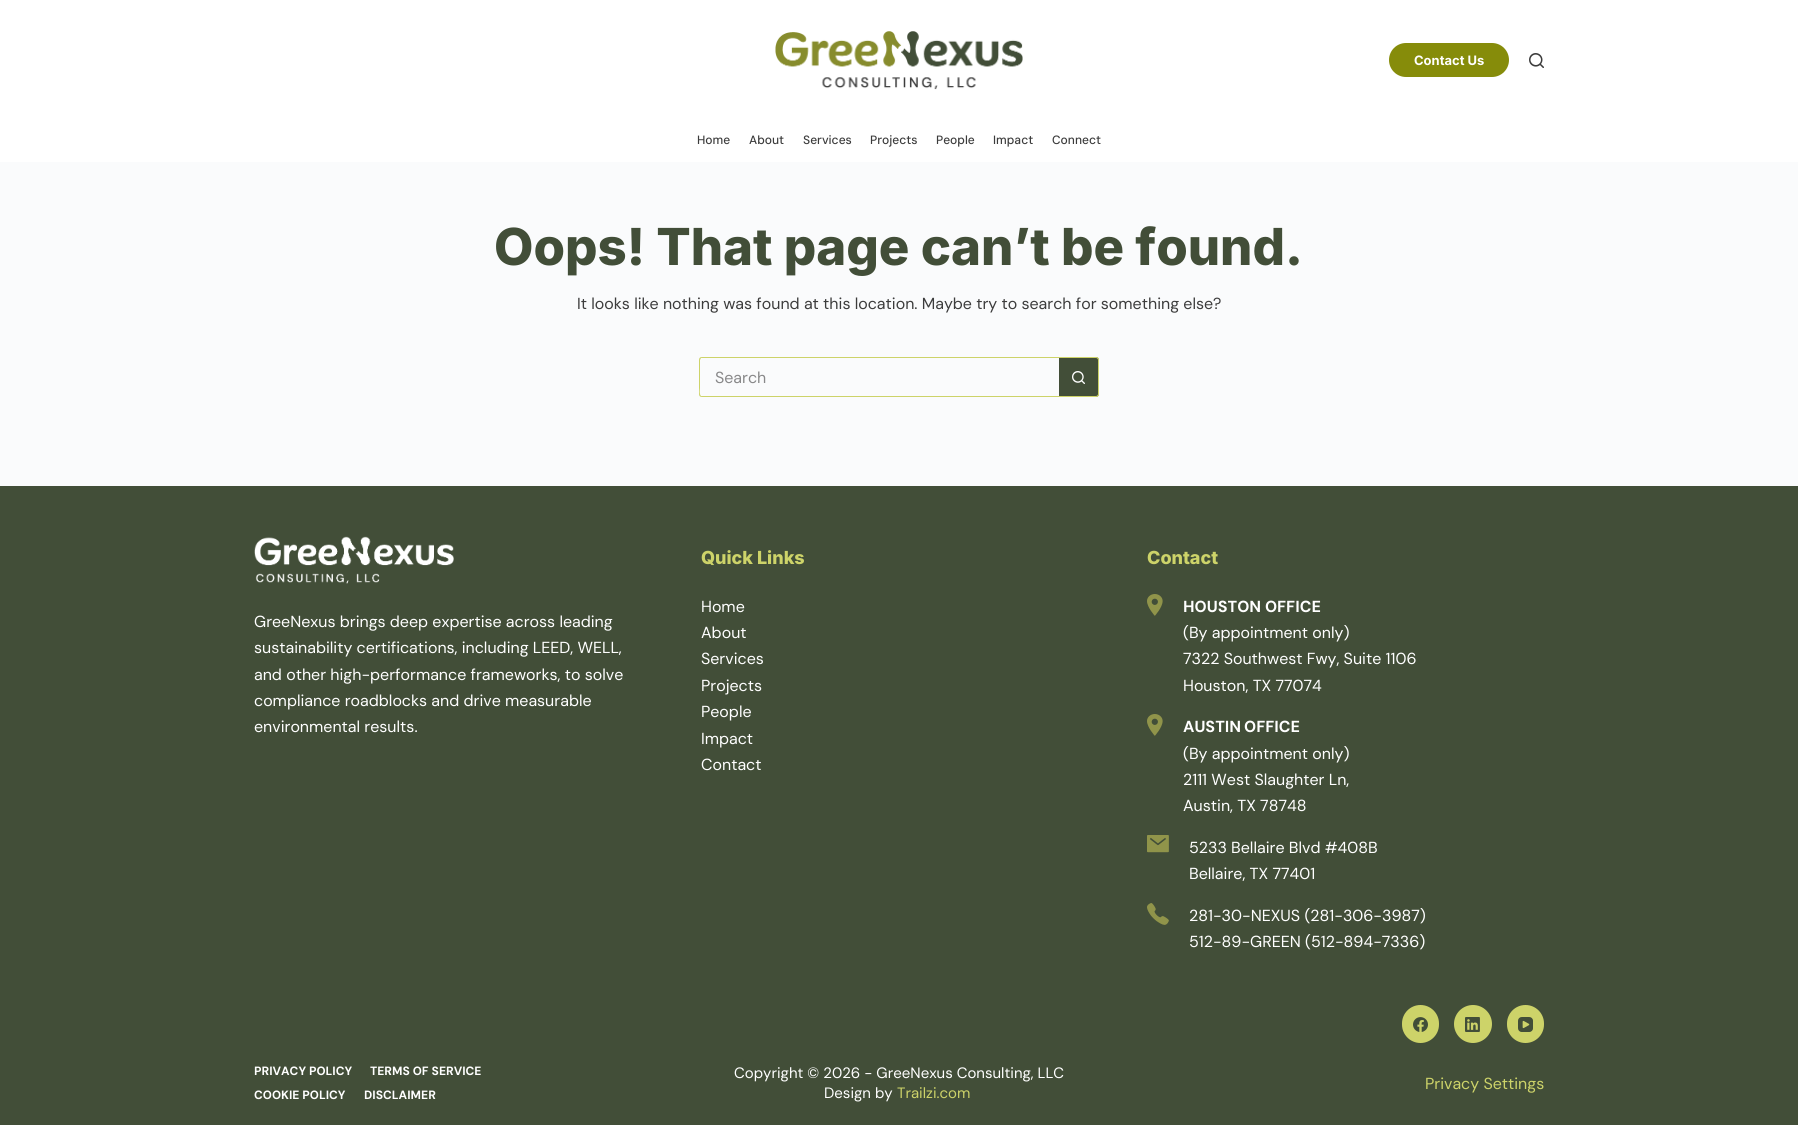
import math
import cairocffi as cairo

surface = cairo.ImageSurface(cairo.FORMAT_RGB24, 1798, 1125)
ctx = cairo.Context(surface)
options = cairo.FontOptions()
options.set_hint_metrics(cairo.HINT_METRICS_OFF)
options.set_hint_style(cairo.HINT_STYLE_NONE)
ctx.set_font_options(options)
ctx.set_miter_limit(4)


def rgb(r, g, b):
    ctx.set_source_rgb(r / 255, g / 255, b / 255)


def face(family, size, italic, bold):
    ctx.select_font_face(family, cairo.FONT_SLANT_ITALIC if italic else cairo.FONT_SLANT_NORMAL, cairo.FONT_WEIGHT_BOLD if bold else cairo.FONT_WEIGHT_NORMAL)
    ctx.set_font_size(size)


def label(x, y, s):
    ctx.move_to(x, y)
    ctx.show_text(s)


def tracked(x, y, s, letter, word):
    ctx.move_to(x, y)
    for ch in s:
        ctx.show_text(ch)
        ctx.rel_move_to(letter + word * (ch == ' '), 0)


def rect(x, y, w, h):
    ctx.rectangle(x, y, w, h)
    ctx.fill()


def rrect(x, y, w, h, r):
    ctx.new_sub_path()
    for i, (u, v) in enumerate([(x + w - r, y + h - r), (x + r, y + h - r), (x + r, y + r), (x + w - r, y + r)]):
        ctx.arc(u, v, r, i * math.pi / 2, (i + 1) * math.pi / 2)
    ctx.close_path()


def image(path, x, y, w, h):
    ctx.save()
    ctx.set_source_surface(cairo.ImageSurface.create_from_png(path), x, y)
    ctx.rectangle(x, y, w, h)
    ctx.fill()
    ctx.restore()


rgb(250, 251, 252)
ctx.paint()
rgb(255, 255, 255)
rect(0, 0, 1798, 162)
image('image0.png', 775, 31, 248, 59)
rgb(134, 140, 10)
rrect(1389, 43, 120, 34, 17)
ctx.fill()
face('Inter', 13, 0, 1)
rgb(255, 255, 255)
label(1414, 65, 'Contact Us')
image('image1.png', 1529, 53, 15, 15)
face('DM Sans Medium', 12, 0, 0)
rgb(60, 60, 60)
label(697, 144, 'Home')
label(749, 144, 'About')
label(803, 144, 'Services')
label(870, 144, 'Projects')
label(936, 144, 'People')
label(993, 144, 'Impact')
label(1052, 144, 'Connect')
face('Inter ExtraBold', 51, 0, 0)
rgb(66, 78, 56)
label(494, 265, 'Oops! That page can’t be found.')
face('DM Sans', 16, 0, 0)
rgb(60, 60, 60)
label(577, 309, 'It looks like nothing was found at this location. Maybe try to search for something else?')
rgb(205, 211, 105)
ctx.set_fill_rule(cairo.FILL_RULE_EVEN_ODD)
ctx.new_path()
ctx.move_to(702, 357)
ctx.line_to(1059, 357)
ctx.line_to(1059, 397)
ctx.line_to(702, 397)
ctx.curve_to(700, 397, 699, 396, 699, 394)
ctx.line_to(699, 360)
ctx.curve_to(699, 358, 700, 357, 702, 357)
ctx.close_path()
ctx.move_to(702, 358)
ctx.line_to(1059, 358)
ctx.line_to(1059, 396)
ctx.line_to(701, 396)
ctx.curve_to(699, 394, 700, 389, 700, 388)
ctx.line_to(700, 360)
ctx.line_to(701, 358)
ctx.close_path()
ctx.fill()
rgb(136, 136, 137)
label(715, 383, 'Search')
rgb(66, 78, 56)
ctx.new_path()
ctx.move_to(1059, 357)
ctx.line_to(1096, 357)
ctx.curve_to(1097.5, 357, 1099, 358.5, 1099, 360)
ctx.line_to(1099, 394)
ctx.curve_to(1099, 395.5, 1097.5, 397, 1096, 397)
ctx.line_to(1059, 397)
ctx.close_path()
ctx.fill()
rgb(205, 211, 105)
ctx.new_path()
ctx.move_to(1059, 357)
ctx.line_to(1096, 357)
ctx.curve_to(1098, 357, 1099, 358, 1099, 360)
ctx.line_to(1099, 394)
ctx.curve_to(1099, 396, 1098, 397, 1096, 397)
ctx.line_to(1059, 397)
ctx.close_path()
ctx.move_to(1059, 358)
ctx.line_to(1096, 358)
ctx.curve_to(1097, 358, 1098, 359, 1098, 360)
ctx.line_to(1098, 394)
ctx.curve_to(1098, 395, 1097, 396, 1096, 396)
ctx.line_to(1059, 396)
ctx.close_path()
ctx.fill()
image('image2.png', 1072, 371, 13, 13)
rgb(66, 78, 56)
rect(0, 486, 1798, 639)
image('image3.png', 254, 536, 200, 48)
rgb(255, 255, 255)
label(254, 627, 'GreeNexus brings deep expertise across leading')
label(254, 653, 'sustainability certifications, including LEED, WELL,')
label(254, 680, 'and other high-performance frameworks, to solve')
label(254, 706, 'compliance roadblocks and drive measurable')
label(254, 732, 'environmental results.')
face('Inter ExtraBold', 18, 0, 0)
rgb(205, 211, 105)
label(701, 564, 'Quick Links')
face('DM Sans', 16, 0, 0)
rgb(255, 255, 255)
label(701, 612, 'Home')
label(701, 638, 'About')
label(701, 664, 'Services')
label(701, 691, 'Projects')
label(701, 717, 'People')
label(701, 744, 'Impact')
label(701, 770, 'Contact')
face('Inter ExtraBold', 18, 0, 0)
rgb(205, 211, 105)
label(1147, 564, 'Contact')
image('image4.png', 1147, 594, 16, 22)
face('DM Sans', 16, 0, 1)
rgb(255, 255, 255)
label(1183, 612, 'HOUSTON OFFICE')
face('DM Sans', 16, 0, 0)
label(1183, 638, '(By appointment only)')
label(1183, 664, '7322 Southwest Fwy, Suite 1106')
label(1183, 691, 'Houston, TX 77074')
image('image4.png', 1147, 714, 16, 22)
face('DM Sans', 16, 0, 1)
tracked(1183, 732, 'AUSTIN OFFICE', 0, -1)
face('DM Sans', 16, 0, 0)
label(1183, 759, '(By appointment only)')
label(1183, 785, '2111 West Slaughter Ln,')
label(1183, 811, 'Austin, TX 78748')
image('image5.png', 1147, 835, 22, 18)
label(1189, 853, '5233 Bellaire Blvd #408B')
label(1189, 879, 'Bellaire, TX 77401')
image('image6.png', 1147, 903, 22, 22)
label(1189, 921, '281-30-NEXUS (281-306-3987)')
label(1189, 947, '512-89-GREEN (512-894-7336)')
rgb(205, 211, 105)
rrect(1402, 1005, 37, 38, 18.5)
ctx.fill()
image('image7.png', 1413, 1017, 15, 15)
ctx.arc(1473, 1024, 19, 0, 2 * math.pi)
ctx.fill()
image('image8.png', 1465, 1017, 15, 15)
rrect(1507, 1005, 37, 38, 18.5)
ctx.fill()
image('image9.png', 1518, 1017, 15, 15)
face('DM Sans', 12, 0, 1)
rgb(255, 255, 255)
label(254, 1075, 'PRIVACY POLICY')
label(370, 1075, 'TERMS OF SERVICE')
label(254, 1099, 'COOKIE POLICY')
label(364, 1099, 'DISCLAIMER')
face('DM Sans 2', 15, 0, 0)
label(734, 1078, 'Copyright © 2026 - GreeNexus Consulting, LLC')
label(824, 1098, 'Design by')
rgb(205, 211, 105)
label(897, 1098, 'Trailzi.com')
face('DM Sans', 16, 0, 0)
label(1425, 1089, 'Privacy Settings')
surface.write_to_png('render.png')
